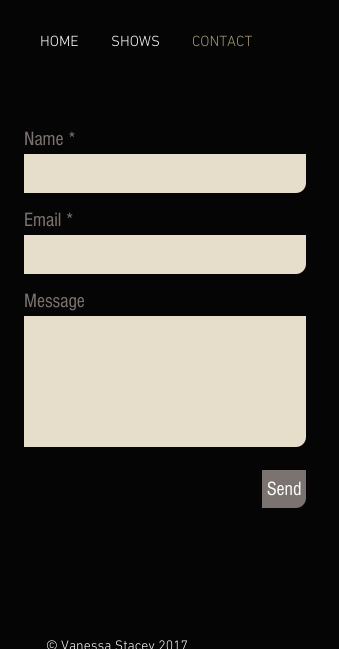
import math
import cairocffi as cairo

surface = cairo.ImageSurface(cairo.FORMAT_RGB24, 339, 649)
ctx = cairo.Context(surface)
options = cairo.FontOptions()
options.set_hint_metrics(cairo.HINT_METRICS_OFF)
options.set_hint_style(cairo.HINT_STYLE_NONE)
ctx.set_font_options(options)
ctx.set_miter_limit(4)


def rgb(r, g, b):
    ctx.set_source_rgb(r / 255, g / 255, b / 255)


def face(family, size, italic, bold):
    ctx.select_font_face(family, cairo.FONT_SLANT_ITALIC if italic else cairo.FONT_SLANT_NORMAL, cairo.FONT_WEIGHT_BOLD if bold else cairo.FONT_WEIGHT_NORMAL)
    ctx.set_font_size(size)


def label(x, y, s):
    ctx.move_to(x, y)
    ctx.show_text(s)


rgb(5, 5, 5)
ctx.paint()
face('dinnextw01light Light', 15, 0, 0)
rgb(252, 252, 252)
label(40, 46, 'HOME')
label(111, 46, 'SHOWS')
rgb(163, 149, 109)
label(192, 46, 'CONTACT')
face('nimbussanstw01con', 20, 0, 0)
rgb(123, 115, 111)
label(24, 145, 'Name *')
rgb(230, 222, 202)
ctx.new_path()
ctx.move_to(24, 154)
ctx.line_to(306, 154)
ctx.line_to(306, 183)
ctx.curve_to(306, 188.5, 301.5, 193, 296, 193)
ctx.line_to(24, 193)
ctx.close_path()
ctx.fill()
rgb(123, 115, 111)
label(24, 226, 'Email *')
rgb(230, 222, 202)
ctx.new_path()
ctx.move_to(24, 235)
ctx.line_to(306, 235)
ctx.line_to(306, 264)
ctx.curve_to(306, 269.5, 301.5, 274, 296, 274)
ctx.line_to(24, 274)
ctx.close_path()
ctx.fill()
rgb(123, 115, 111)
label(24, 307, 'Message')
rgb(230, 222, 202)
ctx.new_path()
ctx.move_to(24, 316)
ctx.line_to(306, 316)
ctx.line_to(306, 437)
ctx.curve_to(306, 442.5, 301.5, 447, 296, 447)
ctx.line_to(24, 447)
ctx.close_path()
ctx.fill()
rgb(123, 115, 111)
ctx.new_path()
ctx.move_to(262, 470)
ctx.line_to(306, 470)
ctx.line_to(306, 498)
ctx.curve_to(306, 503.5, 301.5, 508, 296, 508)
ctx.line_to(262, 508)
ctx.close_path()
ctx.fill()
rgb(252, 252, 252)
label(267, 495, 'Send')
face('dinnextw01light Light', 14, 0, 0)
label(46, 650, '© Vanessa Stacey 2017')
surface.write_to_png('render.png')
